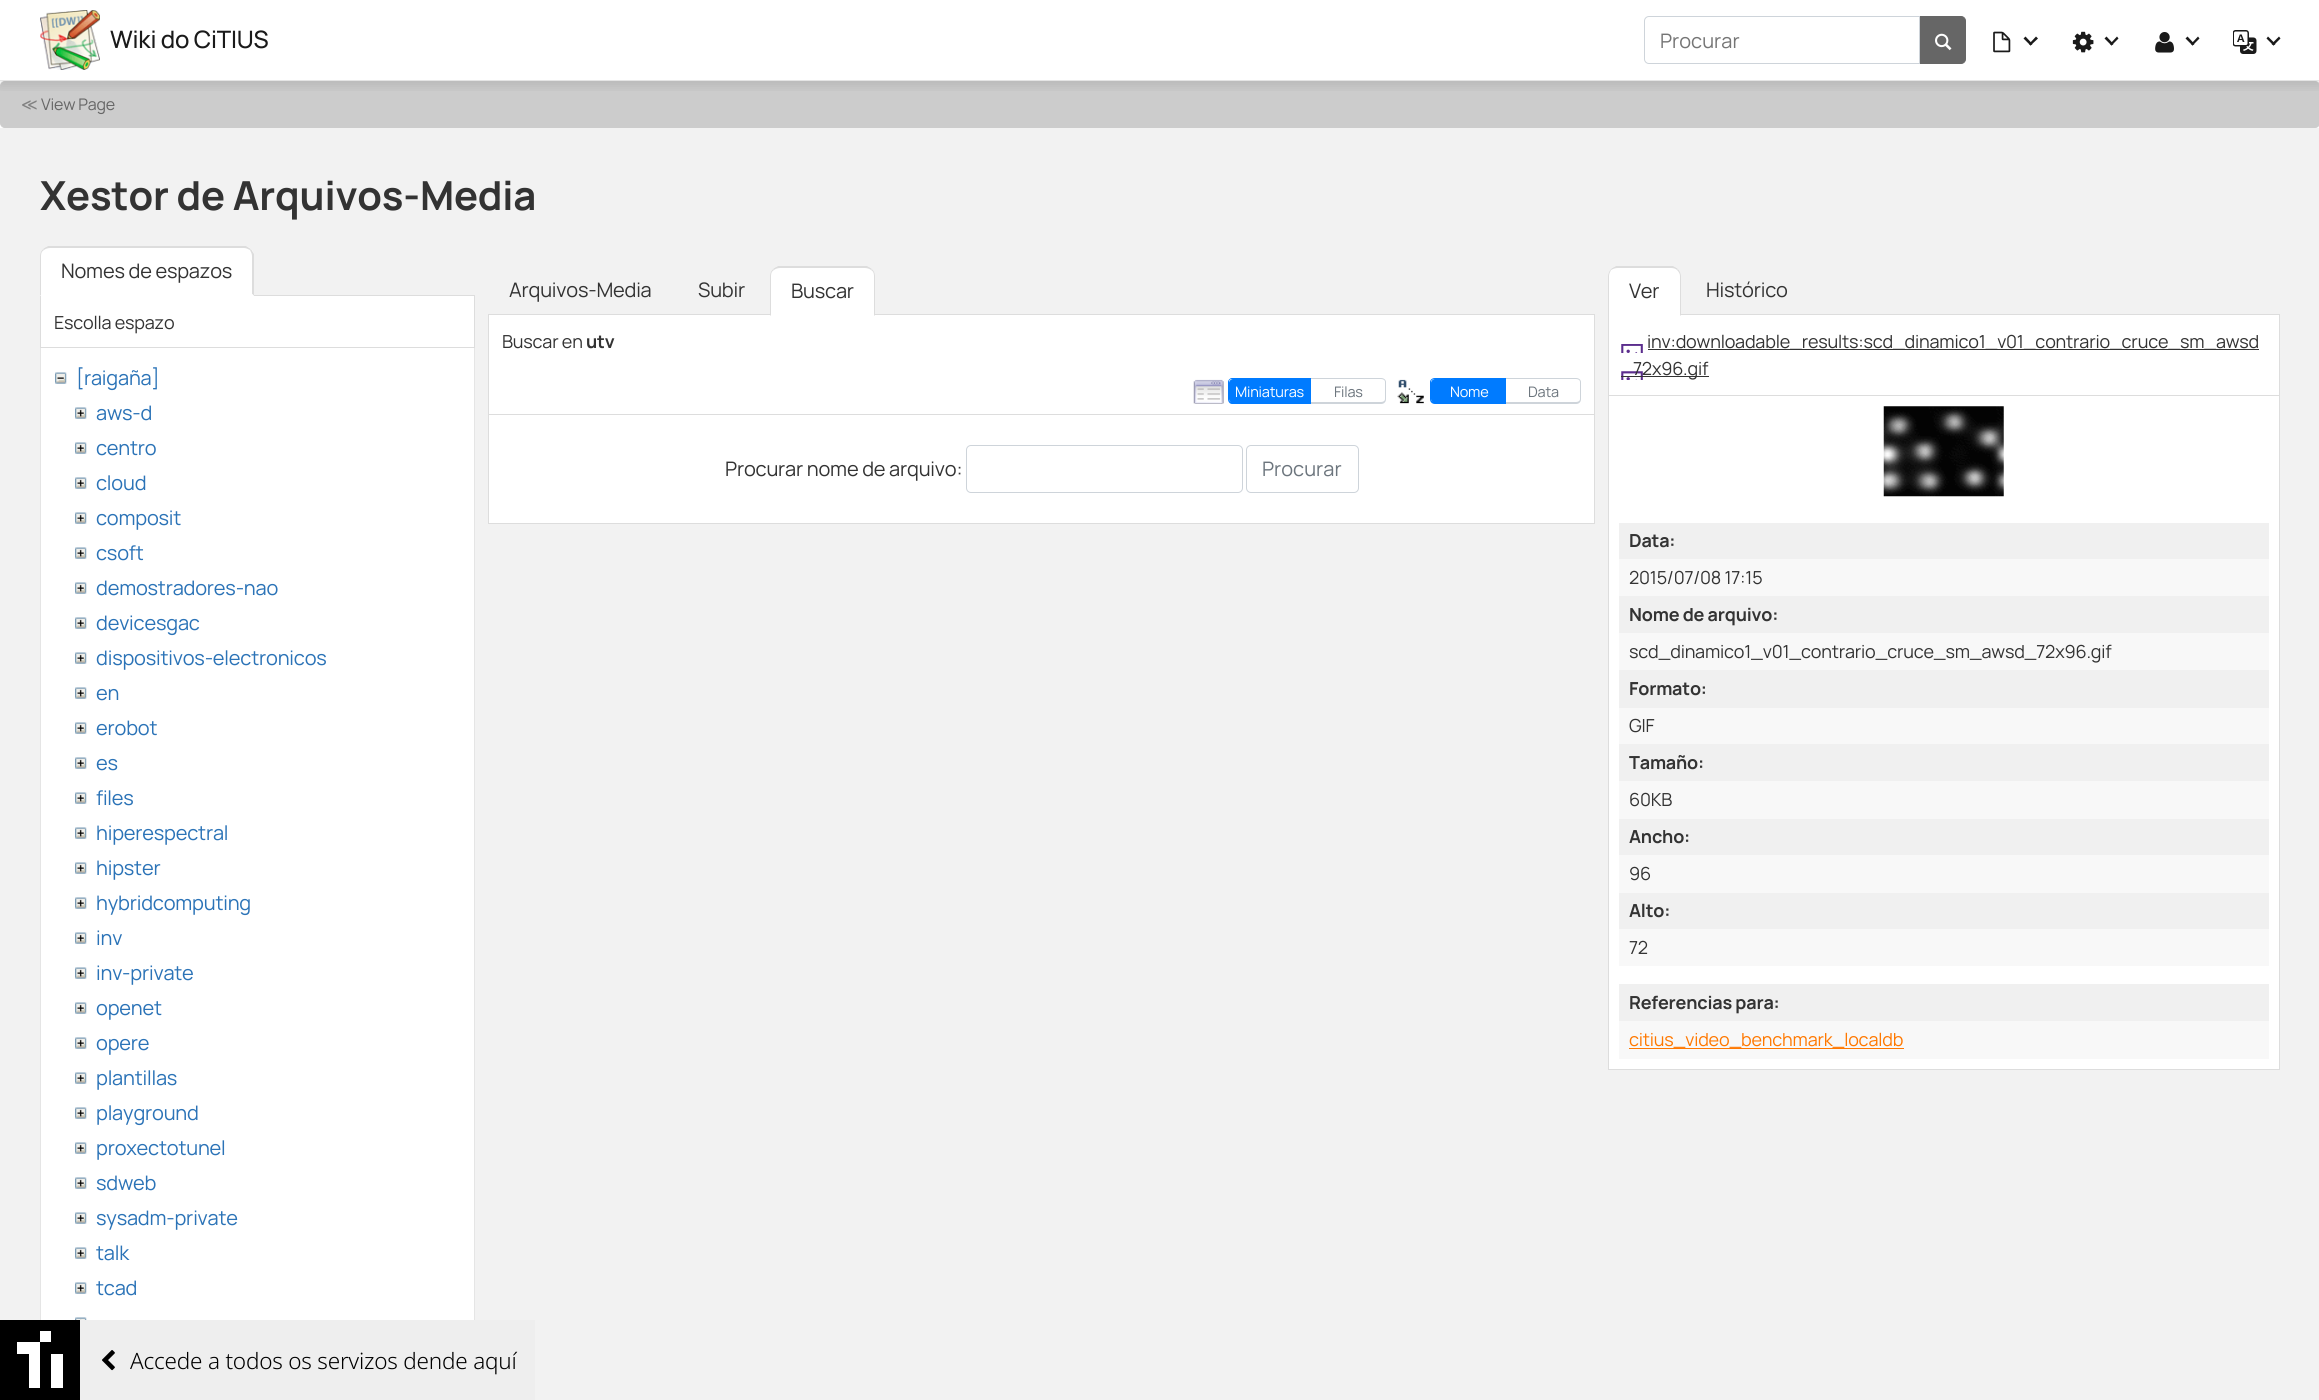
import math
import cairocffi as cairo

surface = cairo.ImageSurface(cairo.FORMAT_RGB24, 2319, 1400)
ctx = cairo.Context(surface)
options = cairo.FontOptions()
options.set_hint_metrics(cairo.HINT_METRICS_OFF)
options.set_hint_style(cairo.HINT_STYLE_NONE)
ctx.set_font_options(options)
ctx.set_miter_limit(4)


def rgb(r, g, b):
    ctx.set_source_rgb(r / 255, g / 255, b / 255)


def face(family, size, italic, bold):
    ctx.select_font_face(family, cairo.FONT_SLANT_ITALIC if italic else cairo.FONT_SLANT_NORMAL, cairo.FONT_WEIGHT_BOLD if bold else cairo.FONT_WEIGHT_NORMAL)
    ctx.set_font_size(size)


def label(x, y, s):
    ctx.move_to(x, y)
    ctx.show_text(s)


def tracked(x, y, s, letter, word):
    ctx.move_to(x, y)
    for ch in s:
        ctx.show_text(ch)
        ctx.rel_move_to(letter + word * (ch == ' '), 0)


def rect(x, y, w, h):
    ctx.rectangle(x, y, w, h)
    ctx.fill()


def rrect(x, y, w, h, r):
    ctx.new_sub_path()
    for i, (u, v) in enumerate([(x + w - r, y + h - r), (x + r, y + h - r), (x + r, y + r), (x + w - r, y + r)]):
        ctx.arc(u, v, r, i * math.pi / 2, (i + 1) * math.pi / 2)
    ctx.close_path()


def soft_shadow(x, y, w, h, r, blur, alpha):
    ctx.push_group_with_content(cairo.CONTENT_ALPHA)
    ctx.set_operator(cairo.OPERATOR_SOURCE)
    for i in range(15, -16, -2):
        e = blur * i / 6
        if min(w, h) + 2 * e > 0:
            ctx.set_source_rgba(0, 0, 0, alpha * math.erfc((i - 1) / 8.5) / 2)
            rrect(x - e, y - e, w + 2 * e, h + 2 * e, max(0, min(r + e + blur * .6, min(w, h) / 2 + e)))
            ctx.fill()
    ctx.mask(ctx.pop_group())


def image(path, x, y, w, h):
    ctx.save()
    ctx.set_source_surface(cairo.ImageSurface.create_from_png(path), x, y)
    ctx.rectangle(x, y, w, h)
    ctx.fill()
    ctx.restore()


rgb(255, 255, 255)
ctx.paint()
rgb(204, 204, 204)
rrect(0.5, 81.5, 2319, 46, 4.5)
ctx.fill_preserve()
ctx.set_line_width(1)
ctx.stroke()
ctx.save()
ctx.rectangle(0, 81, 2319, 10)
ctx.clip()
rgb(0, 0, 0)
soft_shadow(0, 5, 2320, 81, 0, 6, 0.1)
ctx.restore()
rgb(229, 229, 229)
rect(0, 80, 2319, 1)
image('image0.png', 40, 10, 60, 60)
face('Manrope Medium', 24, 0, 0)
rgb(26, 26, 26)
tracked(110, 48, 'Wiki do CiTIUS', -0.2, 0)
ctx.new_path()
ctx.move_to(1649, 16.5)
ctx.line_to(1919.5, 16.5)
ctx.line_to(1919.5, 63.5)
ctx.line_to(1649, 63.5)
ctx.curve_to(1646.5, 63.5, 1644.5, 61.5, 1644.5, 59)
ctx.line_to(1644.5, 21)
ctx.curve_to(1644.5, 18.5, 1646.5, 16.5, 1649, 16.5)
ctx.close_path()
rgb(206, 212, 218)
ctx.stroke()
face('Manrope', 20, 0, 0)
rgb(117, 117, 117)
label(1660, 48, 'Procurar')
rgb(102, 102, 102)
ctx.new_path()
ctx.move_to(1920.5, 16.5)
ctx.line_to(1961, 16.5)
ctx.curve_to(1963.5, 16.5, 1965.5, 18.5, 1965.5, 21)
ctx.line_to(1965.5, 59)
ctx.curve_to(1965.5, 61.5, 1963.5, 63.5, 1961, 63.5)
ctx.line_to(1920.5, 63.5)
ctx.close_path()
ctx.fill_preserve()
ctx.stroke()
image('image1.png', 1935, 33, 17, 18)
image('image2.png', 1993, 31, 18, 22)
rgb(26, 26, 26)
ctx.new_path()
ctx.move_to(2029, 44)
ctx.line_to(2036, 36.5)
ctx.line_to(2038, 38.5)
ctx.line_to(2030.5, 45.5)
ctx.close_path()
ctx.fill()
ctx.new_path()
ctx.move_to(2023.5, 38.5)
ctx.line_to(2025.5, 36.5)
ctx.line_to(2032.5, 44)
ctx.line_to(2030.5, 45.5)
ctx.close_path()
ctx.fill()
image('image3.png', 2072, 31, 22, 22)
ctx.new_path()
ctx.move_to(2110, 44)
ctx.line_to(2117, 36.5)
ctx.line_to(2118.5, 38.5)
ctx.line_to(2111.5, 45.5)
ctx.close_path()
ctx.fill()
ctx.new_path()
ctx.move_to(2104.5, 38.5)
ctx.line_to(2106.5, 36.5)
ctx.line_to(2113.5, 44)
ctx.line_to(2111.5, 45.5)
ctx.close_path()
ctx.fill()
image('image4.png', 2155, 32, 19, 21)
ctx.new_path()
ctx.move_to(2191, 44)
ctx.line_to(2198, 36.5)
ctx.line_to(2199.5, 38.5)
ctx.line_to(2192.5, 45.5)
ctx.close_path()
ctx.fill()
ctx.new_path()
ctx.move_to(2185.5, 38.5)
ctx.line_to(2187.5, 36.5)
ctx.line_to(2194.5, 44)
ctx.line_to(2192.5, 45.5)
ctx.close_path()
ctx.fill()
image('image5.png', 2233, 30, 24, 24)
ctx.new_path()
ctx.move_to(2271.5, 44)
ctx.line_to(2279, 36.5)
ctx.line_to(2280.5, 38.5)
ctx.line_to(2273.5, 45.5)
ctx.close_path()
ctx.fill()
ctx.new_path()
ctx.move_to(2266.5, 38.5)
ctx.line_to(2268, 36.5)
ctx.line_to(2275.5, 44)
ctx.line_to(2273.5, 45.5)
ctx.close_path()
ctx.fill()
face('DejaVu Sans', 16, 0, 0)
rgb(128, 128, 128)
tracked(21, 110, '≪', -0.2, 0)
face('Manrope', 16, 0, 0)
rgb(102, 102, 102)
tracked(41, 110, 'View Page', -0.2, 0)
rgb(242, 242, 242)
rect(0, 128, 2319, 1272)
face('Manrope', 40, 0, 1)
rgb(51, 51, 51)
tracked(40, 210, 'Xestor de Arquivos-Media', -0.2, 0)
rgb(255, 255, 255)
ctx.rectangle(40.5, 295.5, 434, 52)
ctx.fill_preserve()
rgb(221, 221, 221)
ctx.stroke()
rgb(255, 255, 255)
ctx.new_path()
ctx.move_to(50, 246)
ctx.line_to(244, 246)
ctx.curve_to(249.5, 246, 254, 250.5, 254, 256)
ctx.line_to(254, 296)
ctx.line_to(40, 296)
ctx.line_to(40, 256)
ctx.curve_to(40, 250.5, 44.5, 246, 50, 246)
ctx.close_path()
ctx.fill()
rgb(221, 221, 221)
ctx.new_path()
ctx.move_to(50, 248)
ctx.curve_to(48, 248, 45, 249, 44, 250)
ctx.line_to(43, 249)
ctx.curve_to(44, 248, 46, 247, 48, 246)
ctx.line_to(246, 246)
ctx.curve_to(248, 247, 249, 248, 251, 249)
ctx.line_to(250, 250)
ctx.curve_to(248, 249, 246, 248, 244, 248)
ctx.close_path()
ctx.fill()
ctx.new_path()
ctx.move_to(254, 296)
ctx.line_to(252, 294)
ctx.line_to(252, 256)
ctx.curve_to(252, 254, 251, 252, 250, 250)
ctx.line_to(251, 249)
ctx.curve_to(252, 251, 253, 252, 254, 254)
ctx.close_path()
ctx.fill()
rgb(255, 255, 255)
ctx.new_path()
ctx.move_to(254, 296)
ctx.line_to(40, 296)
ctx.line_to(41, 295)
ctx.line_to(252, 295)
ctx.line_to(252, 294)
ctx.close_path()
ctx.fill()
rgb(221, 221, 221)
ctx.new_path()
ctx.move_to(40, 256)
ctx.line_to(40, 296)
ctx.line_to(41, 295)
ctx.line_to(41, 256)
ctx.curve_to(41, 253, 42, 251, 44, 250)
ctx.line_to(43, 249)
ctx.curve_to(41, 251, 40, 253, 40, 256)
ctx.close_path()
ctx.fill()
face('Manrope', 20, 0, 0)
rgb(51, 51, 51)
tracked(61, 278, 'Nomes de espazos', -0.2, 0)
face('Manrope', 18, 0, 0)
tracked(54, 329, 'Escolla espazo', -0.2, 0)
rgb(255, 255, 255)
rect(41, 348, 433, 972)
rgb(229, 229, 229)
rect(474, 348, 1, 972)
rect(40, 348, 1, 972)
image('image6.png', 55, 372, 12, 12)
face('Manrope', 20, 0, 0)
rgb(43, 115, 183)
tracked(76, 385, '[raigaña]', -0.2, 0)
image('image7.png', 75, 407, 12, 12)
tracked(96, 420, 'aws-d', -0.2, 0)
image('image7.png', 75, 442, 12, 12)
tracked(96, 455, 'centro', -0.2, 0)
image('image7.png', 75, 477, 12, 12)
tracked(96, 490, 'cloud', -0.2, 0)
image('image8.png', 75, 512, 12, 12)
tracked(96, 525, 'composit', -0.2, 0)
image('image7.png', 75, 547, 12, 12)
tracked(96, 560, 'csoft', -0.2, 0)
image('image9.png', 75, 582, 12, 12)
tracked(96, 595, 'demostradores-nao', -0.2, 0)
image('image7.png', 75, 617, 12, 12)
tracked(96, 630, 'devicesgac', -0.2, 0)
image('image7.png', 75, 652, 12, 12)
tracked(96, 665, 'dispositivos-electronicos', -0.2, 0)
image('image7.png', 75, 687, 12, 12)
tracked(96, 700, 'en', -0.2, 0)
image('image7.png', 75, 722, 12, 12)
tracked(96, 735, 'erobot', -0.2, 0)
image('image7.png', 75, 757, 12, 12)
tracked(96, 770, 'es', -0.2, 0)
image('image7.png', 75, 792, 12, 12)
tracked(96, 805, 'files', -0.2, 0)
image('image7.png', 75, 827, 12, 12)
tracked(96, 840, 'hiperespectral', -0.2, 0)
image('image7.png', 75, 862, 12, 12)
tracked(96, 875, 'hipster', -0.2, 0)
image('image7.png', 75, 897, 12, 12)
tracked(96, 910, 'hybridcomputing', -0.2, 0)
image('image7.png', 75, 932, 12, 12)
tracked(96, 945, 'inv', -0.2, 0)
image('image7.png', 75, 967, 12, 12)
tracked(96, 980, 'inv-private', -0.2, 0)
image('image7.png', 75, 1002, 12, 12)
tracked(96, 1015, 'openet', -0.2, 0)
image('image7.png', 75, 1037, 12, 12)
tracked(96, 1050, 'opere', -0.2, 0)
image('image7.png', 75, 1072, 12, 12)
tracked(96, 1085, 'plantillas', -0.2, 0)
image('image7.png', 75, 1107, 12, 12)
tracked(96, 1120, 'playground', -0.2, 0)
image('image7.png', 75, 1142, 12, 12)
tracked(96, 1155, 'proxectotunel', -0.2, 0)
image('image7.png', 75, 1177, 12, 12)
tracked(96, 1190, 'sdweb', -0.2, 0)
image('image7.png', 75, 1212, 12, 12)
tracked(96, 1225, 'sysadm-private', -0.2, 0)
image('image7.png', 75, 1247, 12, 12)
tracked(96, 1260, 'talk', -0.2, 0)
image('image7.png', 75, 1282, 12, 12)
tracked(96, 1295, 'tcad', -0.2, 0)
image('image10.png', 75, 1317, 12, 3)
rgb(51, 51, 51)
tracked(509, 297, 'Arquivos-Media', -0.2, 0)
tracked(698, 297, 'Subir', -0.2, 0)
rgb(255, 255, 255)
ctx.rectangle(488.5, 314.5, 1106, 100)
ctx.fill_preserve()
rgb(221, 221, 221)
ctx.stroke()
rgb(255, 255, 255)
ctx.new_path()
ctx.move_to(780, 266)
ctx.line_to(865, 266)
ctx.curve_to(870.5, 266, 875, 270.5, 875, 276)
ctx.line_to(875, 315)
ctx.line_to(770, 315)
ctx.line_to(770, 276)
ctx.curve_to(770, 270.5, 774.5, 266, 780, 266)
ctx.close_path()
ctx.fill()
rgb(221, 221, 221)
ctx.new_path()
ctx.move_to(780, 268)
ctx.curve_to(778, 268, 775, 269, 774, 270)
ctx.line_to(773, 269)
ctx.curve_to(774, 268, 776, 267, 778, 266)
ctx.line_to(867, 266)
ctx.curve_to(869, 267, 871, 268, 872, 269)
ctx.line_to(871, 270)
ctx.curve_to(870, 269, 867, 268, 865, 268)
ctx.close_path()
ctx.fill()
ctx.new_path()
ctx.move_to(875, 316)
ctx.line_to(875, 276)
ctx.curve_to(875, 273, 874, 271, 872, 269)
ctx.line_to(871, 270)
ctx.curve_to(873, 271, 874, 273, 874, 276)
ctx.line_to(874, 315)
ctx.close_path()
ctx.fill()
ctx.new_path()
ctx.move_to(770, 276)
ctx.line_to(770, 316)
ctx.line_to(771, 315)
ctx.line_to(771, 276)
ctx.curve_to(771, 273, 772, 271, 774, 270)
ctx.line_to(773, 269)
ctx.curve_to(771, 271, 770, 273, 770, 276)
ctx.close_path()
ctx.fill()
rgb(51, 51, 51)
tracked(791, 298, 'Buscar', -0.2, 0)
face('Manrope', 18, 0, 0)
tracked(502, 348, 'Buscar en', -0.2, 0)
face('Manrope', 18, 0, 1)
tracked(586, 348, 'utv', -0.2, 0)
image('image11.png', 1193, 379, 31, 25)
rgb(0, 123, 255)
ctx.new_path()
ctx.move_to(1233, 379)
ctx.line_to(1311, 379)
ctx.line_to(1311, 403)
ctx.line_to(1233, 403)
ctx.curve_to(1231, 403, 1229, 401, 1229, 399)
ctx.line_to(1229, 383)
ctx.curve_to(1229, 381, 1231, 379, 1233, 379)
ctx.close_path()
ctx.fill()
ctx.set_fill_rule(cairo.FILL_RULE_EVEN_ODD)
ctx.new_path()
ctx.move_to(1232, 378)
ctx.line_to(1311, 378)
ctx.line_to(1311, 404)
ctx.line_to(1232, 404)
ctx.curve_to(1230, 404, 1228, 402, 1228, 399)
ctx.line_to(1228, 382)
ctx.curve_to(1228, 380, 1230, 378, 1232, 378)
ctx.close_path()
ctx.move_to(1232, 379)
ctx.line_to(1311, 379)
ctx.line_to(1311, 402)
ctx.line_to(1232, 402)
ctx.curve_to(1230, 402, 1229, 401, 1229, 399)
ctx.line_to(1229, 382)
ctx.curve_to(1229, 380, 1230, 379, 1232, 379)
ctx.close_path()
ctx.fill()
face('Manrope', 14.5, 0, 0)
rgb(255, 255, 255)
tracked(1235, 397, 'Miniaturas', -0.2, 0)
rgb(206, 212, 218)
ctx.new_path()
ctx.move_to(1311, 378)
ctx.line_to(1381, 378)
ctx.curve_to(1384, 378, 1386, 380, 1386, 382)
ctx.line_to(1386, 399)
ctx.curve_to(1386, 402, 1384, 404, 1381, 404)
ctx.line_to(1311, 404)
ctx.close_path()
ctx.move_to(1311, 379)
ctx.line_to(1381, 379)
ctx.curve_to(1383, 379, 1385, 380, 1385, 382)
ctx.line_to(1385, 399)
ctx.curve_to(1385, 401, 1383, 402, 1381, 402)
ctx.line_to(1311, 402)
ctx.close_path()
ctx.fill()
rgb(108, 117, 125)
tracked(1334, 397, 'Filas', -0.2, 0)
image('image12.png', 1397, 379, 27, 25)
rgb(0, 123, 255)
ctx.new_path()
ctx.move_to(1435, 379)
ctx.line_to(1506, 379)
ctx.line_to(1506, 403)
ctx.line_to(1435, 403)
ctx.curve_to(1433, 403, 1431, 401, 1431, 399)
ctx.line_to(1431, 383)
ctx.curve_to(1431, 381, 1433, 379, 1435, 379)
ctx.close_path()
ctx.fill()
ctx.new_path()
ctx.move_to(1435, 378)
ctx.line_to(1506, 378)
ctx.line_to(1506, 404)
ctx.line_to(1435, 404)
ctx.curve_to(1432, 404, 1430, 402, 1430, 399)
ctx.line_to(1430, 382)
ctx.curve_to(1430, 380, 1432, 378, 1435, 378)
ctx.close_path()
ctx.move_to(1435, 379)
ctx.line_to(1506, 379)
ctx.line_to(1506, 402)
ctx.line_to(1435, 402)
ctx.curve_to(1433, 402, 1431, 401, 1431, 399)
ctx.line_to(1431, 382)
ctx.curve_to(1431, 380, 1433, 379, 1435, 379)
ctx.close_path()
ctx.fill()
rgb(255, 255, 255)
tracked(1450, 397, 'Nome', -0.2, 0)
rgb(206, 212, 218)
ctx.new_path()
ctx.move_to(1506, 378)
ctx.line_to(1576, 378)
ctx.curve_to(1579, 378, 1581, 380, 1581, 382)
ctx.line_to(1581, 399)
ctx.curve_to(1581, 402, 1579, 404, 1576, 404)
ctx.line_to(1506, 404)
ctx.close_path()
ctx.move_to(1506, 379)
ctx.line_to(1576, 379)
ctx.curve_to(1578, 379, 1580, 380, 1580, 382)
ctx.line_to(1580, 399)
ctx.curve_to(1580, 401, 1578, 402, 1576, 402)
ctx.line_to(1506, 402)
ctx.close_path()
ctx.fill()
rgb(108, 117, 125)
tracked(1528, 397, 'Data', -0.2, 0)
rgb(255, 255, 255)
rect(489, 415, 1105, 108)
rgb(221, 221, 221)
rect(1594, 415, 1, 109)
rect(488, 523, 1107, 1)
rect(488, 415, 1, 109)
face('Manrope', 20, 0, 0)
rgb(51, 51, 51)
tracked(725, 476, 'Procurar nome de arquivo:', -0.2, 0)
rrect(966.5, 445.5, 276, 47, 4.5)
rgb(206, 212, 218)
ctx.stroke()
rrect(1246.5, 445.5, 112, 47, 4.5)
ctx.stroke()
rgb(108, 117, 125)
label(1262, 476, 'Procurar')
rgb(255, 255, 255)
ctx.rectangle(1608.5, 314.5, 671, 81)
ctx.fill_preserve()
rgb(221, 221, 221)
ctx.stroke()
rgb(255, 255, 255)
ctx.new_path()
ctx.move_to(1618, 266)
ctx.line_to(1671, 266)
ctx.curve_to(1676.5, 266, 1681, 270.5, 1681, 276)
ctx.line_to(1681, 315)
ctx.line_to(1608, 315)
ctx.line_to(1608, 276)
ctx.curve_to(1608, 270.5, 1612.5, 266, 1618, 266)
ctx.close_path()
ctx.fill()
rgb(221, 221, 221)
ctx.set_fill_rule(cairo.FILL_RULE_WINDING)
ctx.new_path()
ctx.move_to(1618, 268)
ctx.curve_to(1615, 268, 1613, 269, 1611, 270)
ctx.line_to(1611, 269)
ctx.curve_to(1612, 268, 1614, 267, 1616, 266)
ctx.line_to(1673, 266)
ctx.curve_to(1675, 267, 1677, 268, 1678, 269)
ctx.line_to(1677, 270)
ctx.curve_to(1676, 269, 1674, 268, 1671, 268)
ctx.close_path()
ctx.fill()
ctx.new_path()
ctx.move_to(1678, 269)
ctx.curve_to(1680, 271, 1681, 274, 1681, 276)
ctx.line_to(1681, 316)
ctx.line_to(1680, 315)
ctx.line_to(1680, 276)
ctx.curve_to(1680, 274, 1679, 272, 1677, 270)
ctx.close_path()
ctx.fill()
ctx.new_path()
ctx.move_to(1608, 316)
ctx.line_to(1608, 276)
ctx.curve_to(1608, 274, 1609, 271, 1611, 269)
ctx.line_to(1611, 270)
ctx.curve_to(1610, 272, 1609, 274, 1609, 276)
ctx.line_to(1609, 315)
ctx.close_path()
ctx.fill()
rgb(51, 51, 51)
tracked(1629, 298, 'Ver', -0.2, 0)
tracked(1706, 297, 'Histórico', -0.2, 0)
rect(1648, 349, 611, 1)
face('Manrope', 18, 0, 0)
tracked(1647, 348, 'inv:downloadable_results:scd_dinamico1_v01_contrario_cruce_sm_awsd', -0.2, 0)
image('image13.png', 1621, 344, 22, 36)
rect(1621, 376, 88, 1)
tracked(1633, 375, '72x96.gif', -0.2, 0)
rgb(255, 255, 255)
rect(1609, 396, 670, 673)
rgb(221, 221, 221)
rect(2279, 396, 1, 674)
rect(1608, 1069, 672, 1)
rect(1608, 396, 1, 674)
image('image14.png', 1883, 406, 121, 91)
rgb(240, 240, 240)
rect(1619, 523, 650, 36)
face('Manrope', 18, 0, 1)
rgb(51, 51, 51)
tracked(1629, 547, 'Data:', -0.2, 0)
rgb(248, 248, 248)
rect(1619, 559, 650, 37)
face('Manrope', 18, 0, 0)
rgb(51, 51, 51)
tracked(1629, 584, '2015/07/08 17:15', -0.2, 0)
rgb(240, 240, 240)
rect(1619, 596, 650, 37)
face('Manrope', 18, 0, 1)
rgb(51, 51, 51)
tracked(1629, 621, 'Nome de arquivo:', -0.2, 0)
rgb(248, 248, 248)
rect(1619, 633, 650, 37)
face('Manrope', 18, 0, 0)
rgb(51, 51, 51)
tracked(1629, 658, 'scd_dinamico1_v01_contrario_cruce_sm_awsd_72x96.gif', -0.2, 0)
rgb(240, 240, 240)
rect(1619, 670, 650, 38)
face('Manrope', 18, 0, 1)
rgb(51, 51, 51)
tracked(1629, 695, 'Formato:', -0.2, 0)
rgb(248, 248, 248)
rect(1619, 708, 650, 36)
face('Manrope', 18, 0, 0)
rgb(51, 51, 51)
tracked(1629, 732, 'GIF', -0.2, 0)
rgb(240, 240, 240)
rect(1619, 744, 650, 37)
face('Manrope', 18, 0, 1)
rgb(51, 51, 51)
tracked(1629, 769, 'Tamaño:', -0.2, 0)
rgb(248, 248, 248)
rect(1619, 781, 650, 38)
face('Manrope', 18, 0, 0)
rgb(51, 51, 51)
tracked(1629, 806, '60KB', -0.2, 0)
rgb(240, 240, 240)
rect(1619, 819, 650, 36)
face('Manrope', 18, 0, 1)
rgb(51, 51, 51)
tracked(1629, 843, 'Ancho:', -0.2, 0)
rgb(248, 248, 248)
rect(1619, 855, 650, 38)
face('Manrope', 18, 0, 0)
rgb(51, 51, 51)
tracked(1629, 880, '96', -0.2, 0)
rgb(240, 240, 240)
rect(1619, 893, 650, 36)
face('Manrope', 18, 0, 1)
rgb(51, 51, 51)
tracked(1629, 917, 'Alto:', -0.2, 0)
rgb(248, 248, 248)
rect(1619, 929, 650, 37)
face('Manrope', 18, 0, 0)
rgb(51, 51, 51)
tracked(1629, 954, '72', -0.2, 0)
rgb(240, 240, 240)
rect(1619, 984, 650, 37)
face('Manrope', 18, 0, 1)
rgb(51, 51, 51)
tracked(1629, 1009, 'Referencias para:', -0.2, 0)
rgb(248, 248, 248)
rect(1619, 1021, 650, 38)
face('Manrope', 18, 0, 0)
rgb(255, 120, 0)
tracked(1629, 1046, 'citius_video_benchmark_localdb', -0.2, 0)
rect(1629, 1048, 275, 1)
rgb(255, 255, 255)
rect(17, 1331, 46, 57)
rgb(0, 0, 0)
ctx.new_path()
ctx.move_to(0, 1360)
ctx.line_to(0, 1320)
ctx.line_to(80, 1320)
ctx.line_to(80, 1400)
ctx.line_to(0, 1400)
ctx.close_path()
ctx.move_to(40, 1365)
ctx.line_to(40, 1342)
ctx.line_to(51, 1342)
ctx.line_to(51, 1331)
ctx.line_to(40, 1331)
ctx.line_to(40, 1342)
ctx.line_to(17, 1342)
ctx.line_to(17, 1354)
ctx.line_to(29, 1354)
ctx.line_to(29, 1388)
ctx.line_to(40, 1388)
ctx.close_path()
ctx.move_to(63, 1371)
ctx.line_to(63, 1354)
ctx.line_to(51, 1354)
ctx.line_to(51, 1388)
ctx.line_to(63, 1388)
ctx.close_path()
ctx.fill()
rgb(238, 238, 238)
rect(80, 1320, 455, 80)
image('image15.png', 102, 1350, 13, 21)
face('Noto Sans Light', 22.5, 0, 0)
rgb(0, 0, 0)
tracked(130, 1369, 'Accede a todos os servizos dende aquí', -0.2, 0)
surface.write_to_png('render.png')
